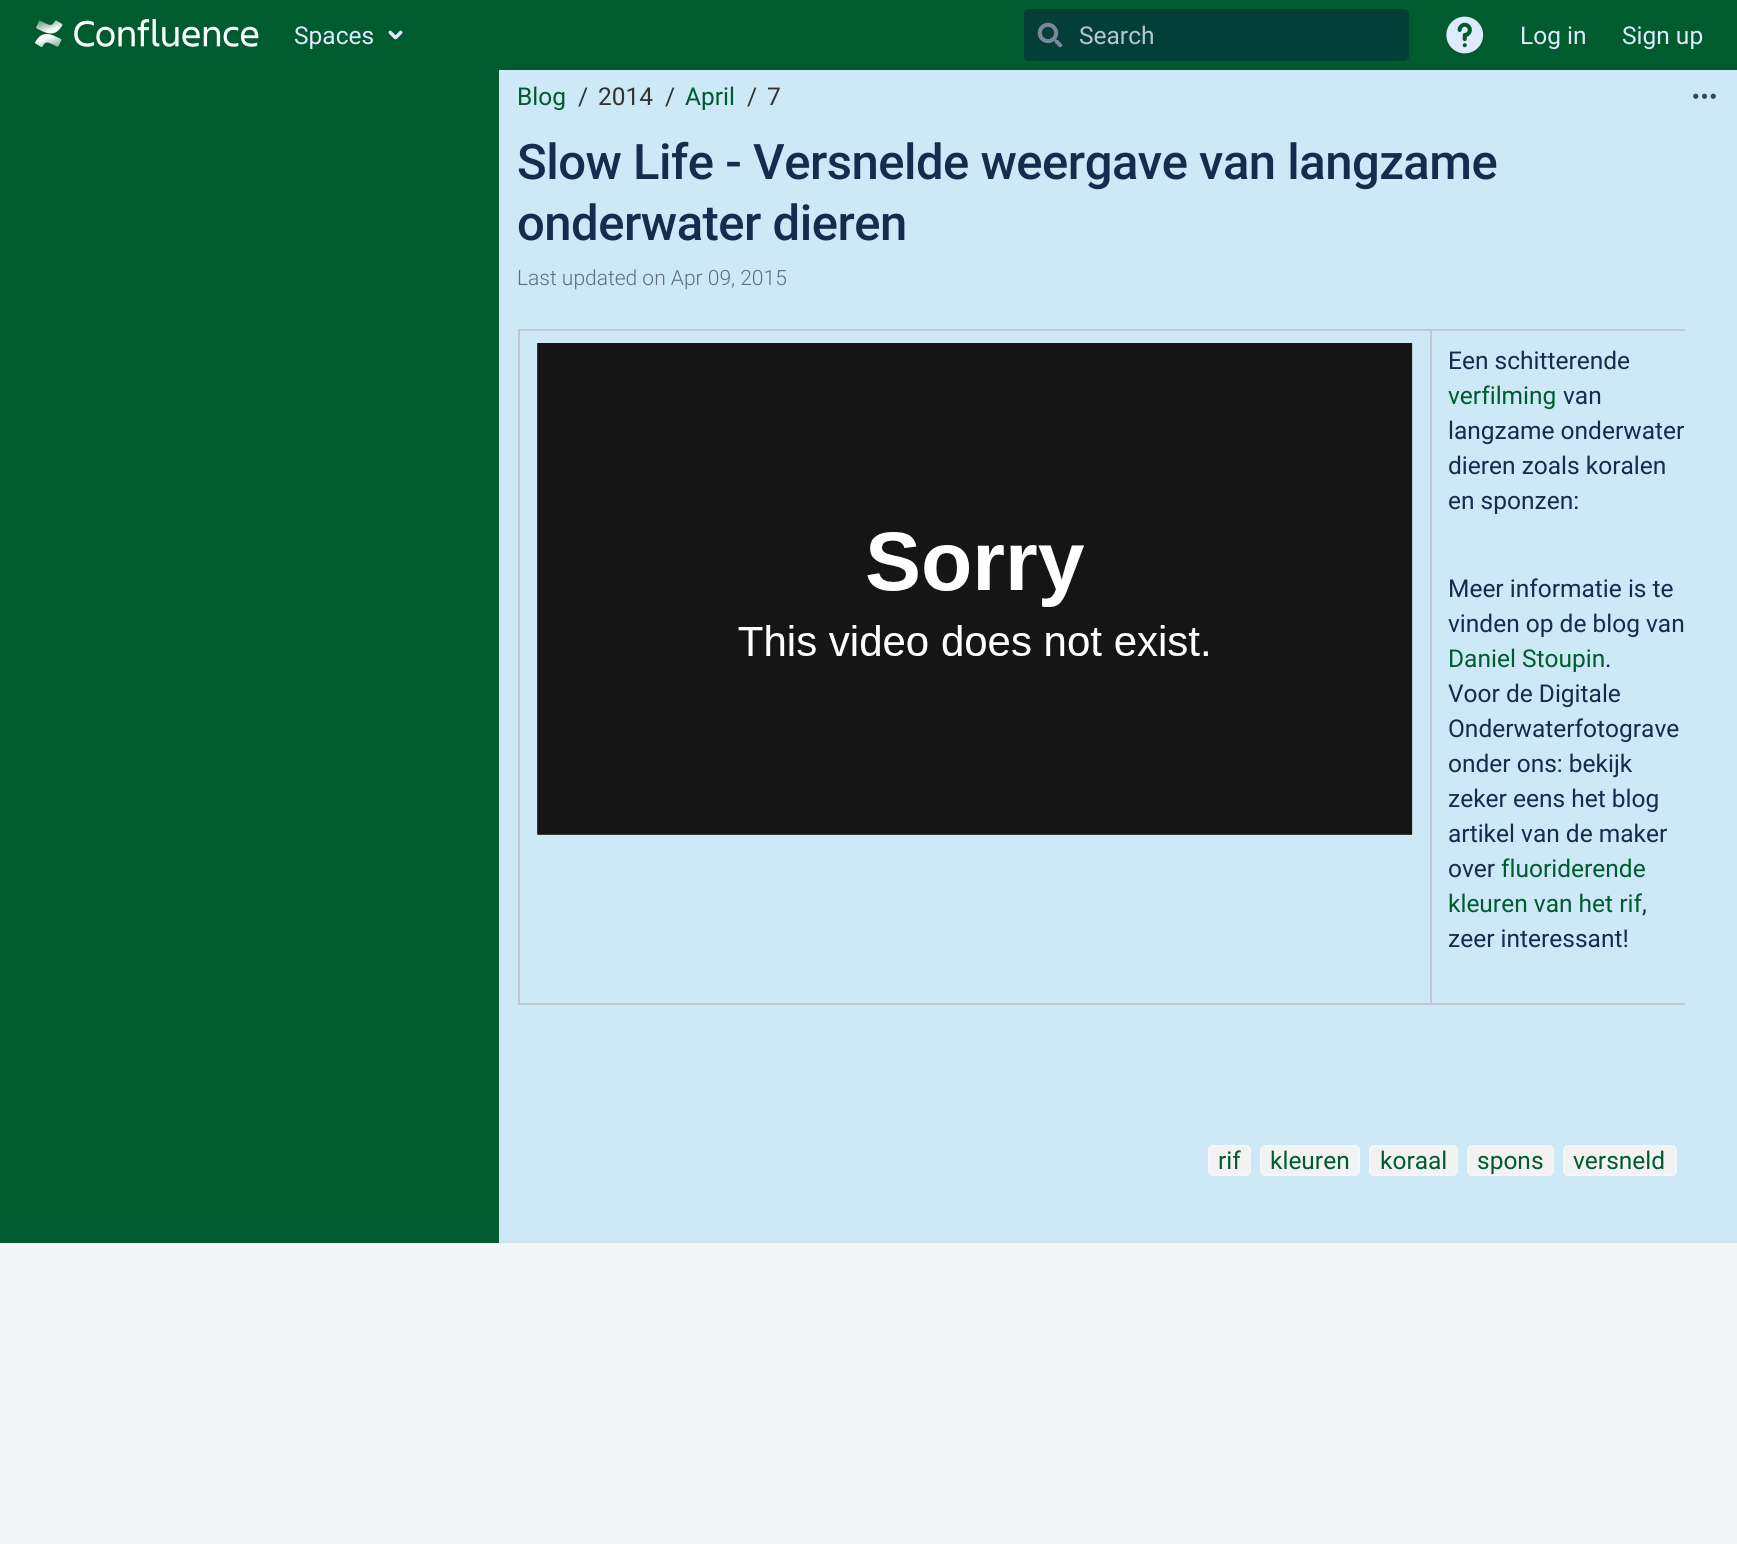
import math
import cairocffi as cairo

surface = cairo.ImageSurface(cairo.FORMAT_RGB24, 1737, 1544)
ctx = cairo.Context(surface)
options = cairo.FontOptions()
options.set_hint_metrics(cairo.HINT_METRICS_OFF)
options.set_hint_style(cairo.HINT_STYLE_NONE)
ctx.set_font_options(options)
ctx.set_miter_limit(4)


def rgb(r, g, b):
    ctx.set_source_rgb(r / 255, g / 255, b / 255)


def face(family, size, italic, bold):
    ctx.select_font_face(family, cairo.FONT_SLANT_ITALIC if italic else cairo.FONT_SLANT_NORMAL, cairo.FONT_WEIGHT_BOLD if bold else cairo.FONT_WEIGHT_NORMAL)
    ctx.set_font_size(size)


def label(x, y, s):
    ctx.move_to(x, y)
    ctx.show_text(s)


def tracked(x, y, s, letter, word):
    ctx.move_to(x, y)
    for ch in s:
        ctx.show_text(ch)
        ctx.rel_move_to(letter + word * (ch == ' '), 0)


def rect(x, y, w, h):
    ctx.rectangle(x, y, w, h)
    ctx.fill()


def rrect(x, y, w, h, r):
    ctx.new_sub_path()
    for i, (u, v) in enumerate([(x + w - r, y + h - r), (x + r, y + h - r), (x + r, y + r), (x + w - r, y + r)]):
        ctx.arc(u, v, r, i * math.pi / 2, (i + 1) * math.pi / 2)
    ctx.close_path()


def image(path, x, y, w, h):
    ctx.save()
    ctx.set_source_surface(cairo.ImageSurface.create_from_png(path), x, y)
    ctx.rectangle(x, y, w, h)
    ctx.fill()
    ctx.restore()


rgb(244, 245, 247)
ctx.paint()
rgb(0, 91, 47)
rect(0, 0, 1737, 1243)
image('image0.png', 35, 19, 224, 29)
face('Roboto', 24.5, 0, 0)
rgb(222, 235, 255)
label(294, 44, 'Spaces')
image('image1.png', 388, 30, 15, 10)
rgb(4, 62, 56)
rrect(1024, 9, 385, 52, 5)
ctx.fill()
image('image2.png', 1037, 22, 26, 26)
rgb(178, 200, 215)
label(1079, 44, 'Search')
image('image3.png', 1446, 16, 38, 38)
rgb(222, 235, 255)
label(1520, 44, 'Log in')
label(1622, 44, 'Sign up')
rgb(205, 232, 246)
rect(499, 70, 1238, 1171)
rgb(223, 225, 230)
rect(499, 1241, 1238, 2)
rgb(0, 91, 47)
label(517, 105, 'Blog')
rgb(51, 51, 51)
label(578, 105, '/')
label(598, 105, '2014')
label(665, 105, '/')
rgb(0, 91, 47)
label(685, 105, 'April')
rgb(51, 51, 51)
label(747, 105, '/')
label(767, 105, '7')
face('Roboto Medium', 49, 0, 0)
rgb(23, 43, 77)
tracked(517, 179, 'Slow Life - Versnelde weergave van langzame', -0.5, 0)
tracked(517, 240, 'onderwater dieren', -0.5, 0)
image('image4.png', 1693, 93, 23, 6)
face('Roboto Light', 21, 0, 0)
rgb(94, 108, 132)
label(517, 285, 'Last updated on Apr 09, 2015')
rgb(193, 199, 208)
rect(1430, 329, 255, 2)
rect(1430, 1003, 255, 2)
rect(1430, 329, 2, 676)
rect(518, 329, 914, 2)
rect(518, 1003, 914, 2)
rect(518, 329, 2, 676)
image('image5.png', 537, 343, 876, 492)
face('Roboto', 24.5, 0, 0)
rgb(23, 43, 77)
label(1448, 369, 'Een schitterende')
rgb(0, 91, 47)
label(1448, 404, 'verfilming')
rgb(23, 43, 77)
label(1563, 404, 'van')
label(1448, 439, 'langzame onderwater')
label(1448, 474, 'dieren zoals koralen')
label(1448, 509, 'en sponzen:')
label(1448, 597, 'Meer informatie is te')
label(1448, 632, 'vinden op de blog van')
rgb(0, 91, 47)
label(1448, 667, 'Daniel Stoupin')
rgb(23, 43, 77)
label(1605, 667, '.')
label(1448, 702, 'Voor de Digitale')
label(1448, 737, 'Onderwaterfotograve')
label(1448, 772, 'onder ons: bekijk')
label(1448, 807, 'zeker eens het blog')
label(1448, 842, 'artikel van de maker')
label(1448, 877, 'over')
rgb(0, 91, 47)
label(1501, 877, 'fluoriderende')
label(1448, 912, 'kleuren van het rif')
rgb(23, 43, 77)
label(1642, 912, ',')
label(1448, 947, 'zeer interessant!')
rgb(242, 242, 242)
rrect(1209, 1146, 41, 29, 4)
ctx.fill_preserve()
rgb(244, 245, 247)
ctx.stroke()
rgb(0, 91, 47)
label(1218, 1169, 'rif')
rgb(242, 242, 242)
rrect(1261, 1146, 98, 29, 4)
ctx.fill_preserve()
rgb(244, 245, 247)
ctx.stroke()
rgb(0, 91, 47)
label(1270, 1169, 'kleuren')
rgb(242, 242, 242)
rrect(1370, 1146, 87, 29, 4)
ctx.fill_preserve()
rgb(244, 245, 247)
ctx.stroke()
rgb(0, 91, 47)
label(1380, 1169, 'koraal')
rgb(242, 242, 242)
rrect(1468, 1146, 85, 29, 4)
ctx.fill_preserve()
rgb(244, 245, 247)
ctx.stroke()
rgb(0, 91, 47)
label(1477, 1169, 'spons')
rgb(242, 242, 242)
rrect(1564, 1146, 112, 29, 4)
ctx.fill_preserve()
rgb(244, 245, 247)
ctx.stroke()
rgb(0, 91, 47)
label(1573, 1169, 'versneld')
surface.write_to_png('render.png')
